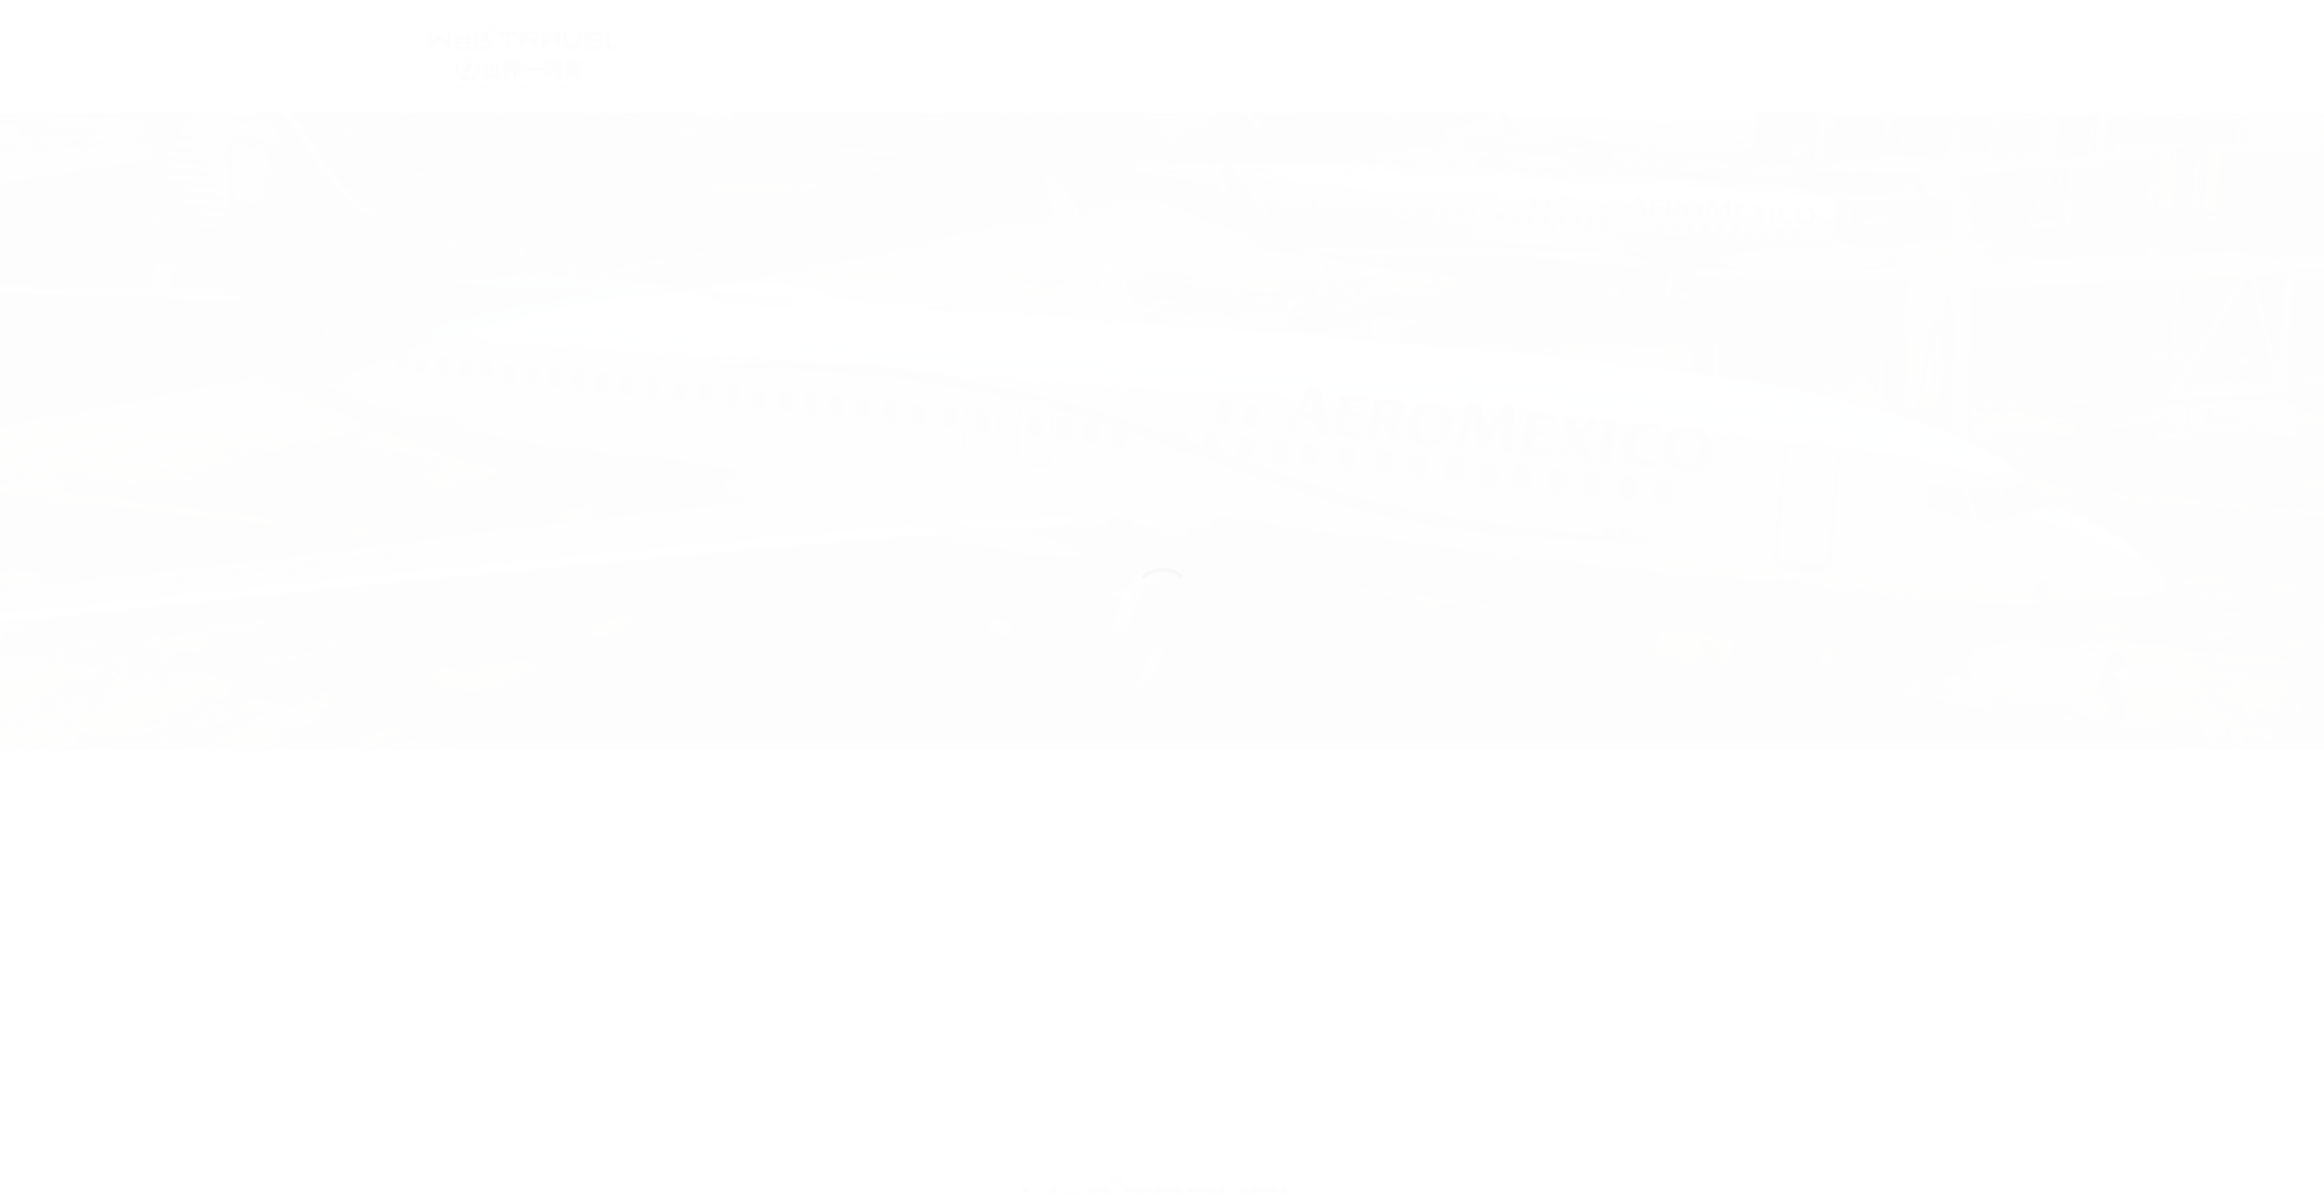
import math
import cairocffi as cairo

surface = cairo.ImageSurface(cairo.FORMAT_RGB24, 2324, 1194)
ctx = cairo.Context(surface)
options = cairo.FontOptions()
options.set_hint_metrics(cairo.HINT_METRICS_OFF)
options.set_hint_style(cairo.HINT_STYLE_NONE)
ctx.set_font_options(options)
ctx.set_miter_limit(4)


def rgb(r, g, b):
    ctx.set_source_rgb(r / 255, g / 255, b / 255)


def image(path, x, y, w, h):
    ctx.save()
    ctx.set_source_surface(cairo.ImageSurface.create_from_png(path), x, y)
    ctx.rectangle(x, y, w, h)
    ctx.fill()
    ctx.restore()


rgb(255, 255, 255)
ctx.paint()
image('image0.png', 426, 20, 197, 72)
image('image1.png', 0, 113, 2324, 637)
ctx.new_path()
ctx.move_to(1142.5, 577.5)
ctx.curve_to(1153.5, 567, 1171.5, 567, 1182.5, 577.5)
rgb(248, 248, 249)
ctx.set_line_width(3.8)
ctx.stroke()
image('image2.png', 1020, 1171, 269, 23)
surface.write_to_png('render.png')
